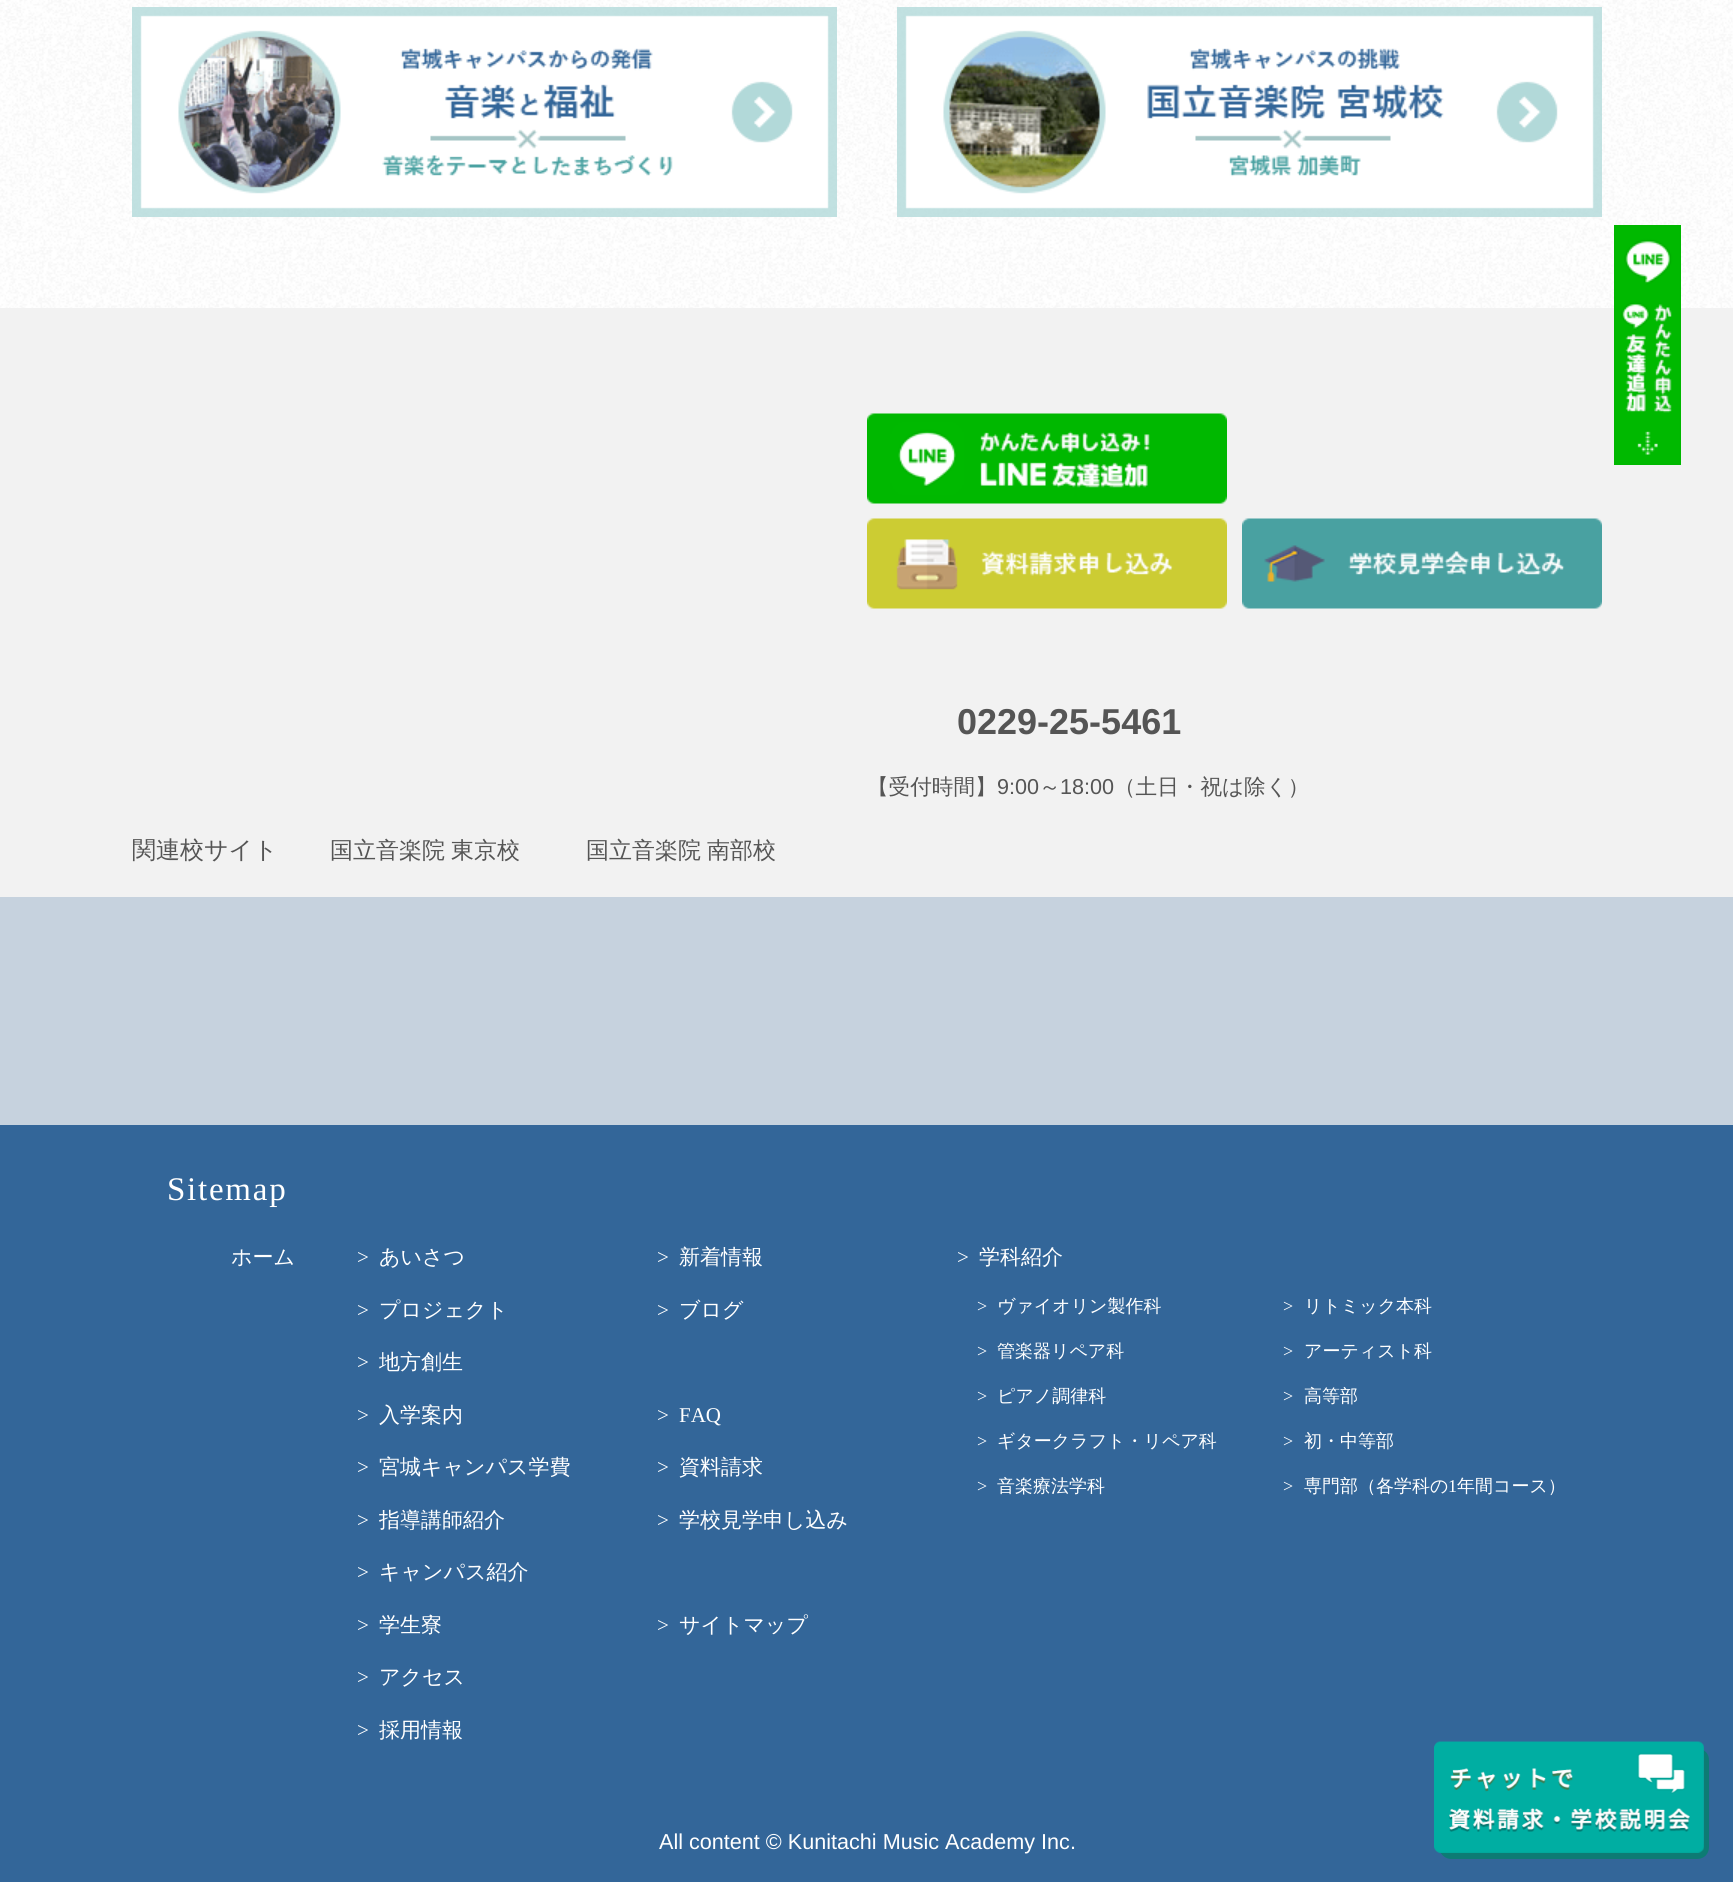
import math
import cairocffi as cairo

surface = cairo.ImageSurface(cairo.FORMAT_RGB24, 1733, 1882)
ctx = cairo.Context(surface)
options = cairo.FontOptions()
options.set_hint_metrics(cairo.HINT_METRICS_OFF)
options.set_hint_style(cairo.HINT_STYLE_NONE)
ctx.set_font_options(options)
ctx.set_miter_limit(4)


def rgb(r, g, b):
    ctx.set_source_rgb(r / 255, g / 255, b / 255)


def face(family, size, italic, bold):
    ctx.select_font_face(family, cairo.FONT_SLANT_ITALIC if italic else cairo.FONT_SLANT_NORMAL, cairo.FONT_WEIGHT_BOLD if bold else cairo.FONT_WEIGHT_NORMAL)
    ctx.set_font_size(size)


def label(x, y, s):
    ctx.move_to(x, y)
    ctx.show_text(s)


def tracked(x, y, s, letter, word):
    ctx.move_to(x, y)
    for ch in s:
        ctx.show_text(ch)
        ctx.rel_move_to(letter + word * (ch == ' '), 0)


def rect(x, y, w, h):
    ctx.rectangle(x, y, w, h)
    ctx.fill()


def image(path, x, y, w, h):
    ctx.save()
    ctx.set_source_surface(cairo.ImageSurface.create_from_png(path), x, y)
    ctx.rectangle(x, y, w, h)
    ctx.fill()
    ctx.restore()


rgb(255, 255, 255)
ctx.paint()
image('image0.png', 0, 0, 1733, 308)
image('image1.png', 132, 7, 705, 210)
image('image2.png', 897, 7, 705, 210)
rgb(242, 242, 242)
rect(0, 308, 1733, 589)
image('image3.png', 1614, 225, 67, 240)
image('image4.png', 867, 413, 360, 91)
image('image5.png', 867, 518, 360, 91)
image('image6.png', 1242, 518, 360, 91)
face('Liberation Sans', 36, 0, 1)
rgb(85, 85, 85)
label(957, 734, '0229-25-5461')
face('WenQuanYi Zen Hei Medium', 21.6, 0, 0)
label(867, 794, '【受付時間】')
face('Liberation Sans', 21.6, 0, 0)
label(997, 794, '9:00')
face('WenQuanYi Zen Hei Medium', 21.6, 0, 0)
label(1039, 794, '～')
face('Liberation Sans', 21.6, 0, 0)
label(1060, 794, '18:00')
face('WenQuanYi Zen Hei Medium', 21.6, 0, 0)
label(1114, 794, '（土日・祝は除く）')
face('WenQuanYi Zen Hei Medium', 24, 0, 0)
label(132, 858, '関連校サイト')
face('WenQuanYi Zen Hei Medium', 23, 0, 0)
label(330, 858, '国立音楽院')
label(451, 858, '東京校')
label(586, 858, '国立音楽院')
label(707, 858, '南部校')
rgb(198, 210, 222)
rect(0, 897, 1733, 228)
rgb(51, 102, 153)
rect(0, 1125, 1733, 757)
face('Liberation Serif', 33, 0, 0)
rgb(255, 255, 255)
tracked(167, 1200, 'Sitemap', 1.75, 0)
face('WenQuanYi Zen Hei Medium', 21, 0, 0)
label(231, 1264, 'ホーム')
face('Liberation Serif', 21, 0, 0)
label(357, 1264, '>')
face('WenQuanYi Zen Hei Medium', 21, 0, 0)
label(379, 1264, 'あいさつ')
face('Liberation Serif', 21, 0, 0)
label(357, 1317, '>')
face('WenQuanYi Zen Hei Medium', 21, 0, 0)
label(379, 1317, 'プロジェクト')
face('Liberation Serif', 21, 0, 0)
label(357, 1369, '>')
face('WenQuanYi Zen Hei Medium', 21, 0, 0)
label(379, 1369, '地方創生')
face('Liberation Serif', 21, 0, 0)
label(357, 1422, '>')
face('WenQuanYi Zen Hei Medium', 21, 0, 0)
label(379, 1422, '入学案内')
face('Liberation Serif', 21, 0, 0)
label(357, 1474, '>')
face('WenQuanYi Zen Hei Medium', 21, 0, 0)
label(379, 1474, '宮城キャンパス学費')
face('Liberation Serif', 21, 0, 0)
label(357, 1527, '>')
face('WenQuanYi Zen Hei Medium', 21, 0, 0)
label(379, 1527, '指導講師紹介')
face('Liberation Serif', 21, 0, 0)
label(357, 1579, '>')
face('WenQuanYi Zen Hei Medium', 21, 0, 0)
label(379, 1579, 'キャンパス紹介')
face('Liberation Serif', 21, 0, 0)
label(357, 1632, '>')
face('WenQuanYi Zen Hei Medium', 21, 0, 0)
label(379, 1632, '学生寮')
face('Liberation Serif', 21, 0, 0)
label(357, 1684, '>')
face('WenQuanYi Zen Hei Medium', 21, 0, 0)
label(379, 1684, 'アクセス')
face('Liberation Serif', 21, 0, 0)
label(357, 1737, '>')
face('WenQuanYi Zen Hei Medium', 21, 0, 0)
label(379, 1737, '採用情報')
face('Liberation Serif', 21, 0, 0)
label(657, 1264, '>')
face('WenQuanYi Zen Hei Medium', 21, 0, 0)
label(679, 1264, '新着情報')
face('Liberation Serif', 21, 0, 0)
label(657, 1317, '>')
face('WenQuanYi Zen Hei Medium', 21, 0, 0)
label(679, 1317, 'ブログ')
face('Liberation Serif', 21, 0, 0)
label(657, 1422, '>')
label(679, 1422, 'FAQ')
label(657, 1474, '>')
face('WenQuanYi Zen Hei Medium', 21, 0, 0)
label(679, 1474, '資料請求')
face('Liberation Serif', 21, 0, 0)
label(657, 1527, '>')
face('WenQuanYi Zen Hei Medium', 21, 0, 0)
label(679, 1527, '学校見学申し込み')
face('Liberation Serif', 21, 0, 0)
label(657, 1632, '>')
face('WenQuanYi Zen Hei Medium', 21, 0, 0)
label(679, 1632, 'サイトマップ')
face('Liberation Serif', 21, 0, 0)
label(957, 1264, '>')
face('WenQuanYi Zen Hei Medium', 21, 0, 0)
label(979, 1264, '学科紹介')
face('Liberation Serif', 18, 0, 0)
label(977, 1312, '>')
face('WenQuanYi Zen Hei Medium', 18, 0, 0)
label(997, 1312, 'ヴァイオリン製作科')
face('Liberation Serif', 18, 0, 0)
label(977, 1357, '>')
face('WenQuanYi Zen Hei Medium', 18, 0, 0)
label(997, 1357, '管楽器リペア科')
face('Liberation Serif', 18, 0, 0)
label(977, 1402, '>')
face('WenQuanYi Zen Hei Medium', 18, 0, 0)
label(997, 1402, 'ピアノ調律科')
face('Liberation Serif', 18, 0, 0)
label(977, 1447, '>')
face('WenQuanYi Zen Hei Medium', 18, 0, 0)
label(997, 1447, 'ギタークラフト・リペア科')
face('Liberation Serif', 18, 0, 0)
label(977, 1492, '>')
face('WenQuanYi Zen Hei Medium', 18, 0, 0)
label(997, 1492, '音楽療法学科')
face('Liberation Serif', 18, 0, 0)
label(1283, 1312, '>')
face('WenQuanYi Zen Hei Medium', 18, 0, 0)
label(1304, 1312, 'リトミック本科')
face('Liberation Serif', 18, 0, 0)
label(1283, 1357, '>')
face('WenQuanYi Zen Hei Medium', 18, 0, 0)
label(1304, 1357, 'アーティスト科')
face('Liberation Serif', 18, 0, 0)
label(1283, 1402, '>')
face('WenQuanYi Zen Hei Medium', 18, 0, 0)
label(1304, 1402, '高等部')
face('Liberation Serif', 18, 0, 0)
label(1283, 1447, '>')
face('WenQuanYi Zen Hei Medium', 18, 0, 0)
label(1304, 1447, '初・中等部')
face('Liberation Serif', 18, 0, 0)
label(1283, 1492, '>')
face('WenQuanYi Zen Hei Medium', 18, 0, 0)
label(1304, 1492, '専門部（各学科の')
face('Liberation Serif', 18, 0, 0)
label(1448, 1492, '1')
face('WenQuanYi Zen Hei Medium', 18, 0, 0)
label(1457, 1492, '年間コース）')
face('Liberation Sans', 21.6, 0, 0)
label(659, 1849, 'All content © Kunitachi Music Academy Inc.')
rgb(13, 123, 116)
ctx.new_path()
ctx.move_to(1440, 1851)
ctx.curve_to(1441, 1855, 1446, 1859, 1451, 1859)
ctx.line_to(1697, 1859)
ctx.curve_to(1704, 1859, 1709, 1854, 1709, 1847)
ctx.line_to(1709, 1760)
ctx.curve_to(1709, 1756, 1707, 1752, 1703, 1750)
ctx.line_to(1704, 1754)
ctx.line_to(1704, 1840)
ctx.curve_to(1704, 1847, 1699, 1852, 1692, 1852)
ctx.line_to(1446, 1852)
ctx.curve_to(1444, 1852, 1441, 1852, 1440, 1851)
ctx.close_path()
ctx.fill()
image('image7.png', 1434, 1741, 270, 112)
surface.write_to_png('render.png')
